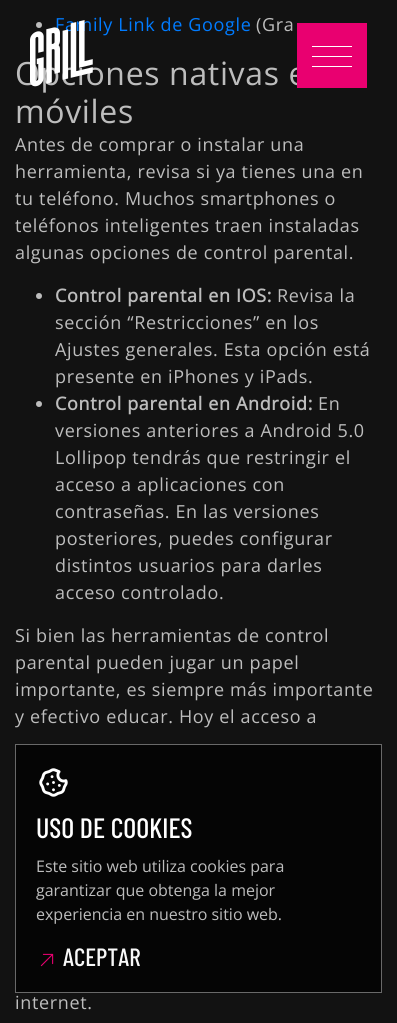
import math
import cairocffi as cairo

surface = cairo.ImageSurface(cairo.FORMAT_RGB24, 397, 1023)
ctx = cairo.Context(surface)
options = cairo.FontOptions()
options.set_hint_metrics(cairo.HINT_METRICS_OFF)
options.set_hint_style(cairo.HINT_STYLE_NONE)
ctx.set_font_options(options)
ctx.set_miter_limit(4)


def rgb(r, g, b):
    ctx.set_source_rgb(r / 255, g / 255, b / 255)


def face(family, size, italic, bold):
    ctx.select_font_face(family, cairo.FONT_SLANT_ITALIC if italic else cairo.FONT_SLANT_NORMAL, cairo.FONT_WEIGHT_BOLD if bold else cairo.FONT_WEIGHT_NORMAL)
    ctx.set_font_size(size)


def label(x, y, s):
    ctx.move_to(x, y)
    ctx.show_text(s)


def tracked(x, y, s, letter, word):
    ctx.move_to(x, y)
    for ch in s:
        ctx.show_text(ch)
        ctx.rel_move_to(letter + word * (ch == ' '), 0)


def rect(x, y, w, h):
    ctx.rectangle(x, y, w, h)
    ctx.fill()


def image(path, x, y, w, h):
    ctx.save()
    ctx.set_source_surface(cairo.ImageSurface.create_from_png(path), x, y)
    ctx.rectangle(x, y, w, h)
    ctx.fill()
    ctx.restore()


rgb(18, 18, 18)
ctx.paint()
rgb(189, 189, 189)
ctx.arc(39, 25, 3, 0, 2 * math.pi)
ctx.fill()
face('Open Sans', 18, 0, 0)
rgb(0, 123, 255)
tracked(55, 31, 'Family Link de Google', 0.65, 0)
rgb(189, 189, 189)
tracked(256, 31, '(Gra', 0.65, 0)
face('Open Sans', 32, 0, 0)
tracked(15, 85, 'Opciones nativas e', 0.65, 0)
tracked(15, 123, 'móviles', 0.65, 0)
face('Open Sans', 18, 0, 0)
tracked(15, 151, 'Antes de comprar o instalar una', 0.65, 0)
tracked(15, 178, 'herramienta, revisa si ya tienes una en', 0.65, 0)
tracked(15, 205, 'tu teléfono. Muchos smartphones o', 0.65, 0)
tracked(15, 232, 'teléfonos inteligentes traen instaladas', 0.65, 0)
tracked(15, 259, 'algunas opciones de control parental.', 0.65, 0)
ctx.new_path()
ctx.arc(39, 296, 3, 0, 2 * math.pi)
ctx.fill()
face('Open Sans', 18, 0, 1)
tracked(55, 302, 'Control parental en IOS:', 0.65, 0)
face('Open Sans', 18, 0, 0)
tracked(277, 302, 'Revisa la', 0.65, 0)
tracked(55, 329, 'sección “Restricciones” en los', 0.65, 0)
tracked(55, 356, 'Ajustes generales. Esta opción está', 0.65, 0)
tracked(55, 383, 'presente en iPhones y iPads.', 0.65, 0)
ctx.new_path()
ctx.arc(39, 404, 3, 0, 2 * math.pi)
ctx.fill()
face('Open Sans', 18, 0, 1)
tracked(55, 410, 'Control parental en Android:', 0.65, 0)
face('Open Sans', 18, 0, 0)
tracked(318, 410, 'En', 0.65, 0)
tracked(55, 437, 'versiones anteriores a Android 5.0', 0.65, 0)
tracked(55, 464, 'Lollipop tendrás que restringir el', 0.65, 0)
tracked(55, 491, 'acceso a aplicaciones con', 0.65, 0)
tracked(55, 518, 'contraseñas. En las versiones', 0.65, 0)
tracked(55, 545, 'posteriores, puedes configurar', 0.65, 0)
tracked(55, 572, 'distintos usuarios para darles', 0.65, 0)
tracked(55, 599, 'acceso controlado.', 0.65, 0)
tracked(15, 642, 'Si bien las herramientas de control', 0.65, 0)
tracked(15, 669, 'parental pueden jugar un papel', 0.65, 0)
tracked(15, 696, 'importante, es siempre más importante', 0.65, 0)
tracked(15, 723, 'y efectivo educar. Hoy el acceso a', 0.65, 0)
tracked(15, 1009, 'internet.', 0.65, 0)
image('image0.png', 30, 20, 63, 67)
rgb(233, 0, 112)
rect(297, 23, 70, 65)
rgb(255, 255, 255)
rect(312, 66, 40, 1)
rect(312, 46, 40, 1)
rect(312, 56, 40, 1)
ctx.set_source_rgba(0, 0, 0, 0.75)
ctx.rectangle(15.5, 744.5, 366, 248)
ctx.fill_preserve()
rgb(105, 105, 105)
ctx.set_line_width(1)
ctx.stroke()
image('image1.png', 39, 768, 29, 29)
face('Barlow Condensed Medium', 28, 0, 0)
rgb(255, 255, 255)
label(36, 838, 'USO DE COOKIES')
face('Open Sans', 16, 0, 0)
rgb(189, 189, 189)
label(36, 872, 'Este sitio web utiliza cookies para')
label(36, 896, 'garantizar que obtenga la mejor')
label(36, 920, 'experiencia en nuestro sitio web.')
image('image2.png', 40, 953, 14, 14)
face('Barlow Condensed Medium', 25, 0, 0)
rgb(248, 248, 248)
label(63, 966, 'ACEPTAR')
surface.write_to_png('render.png')
